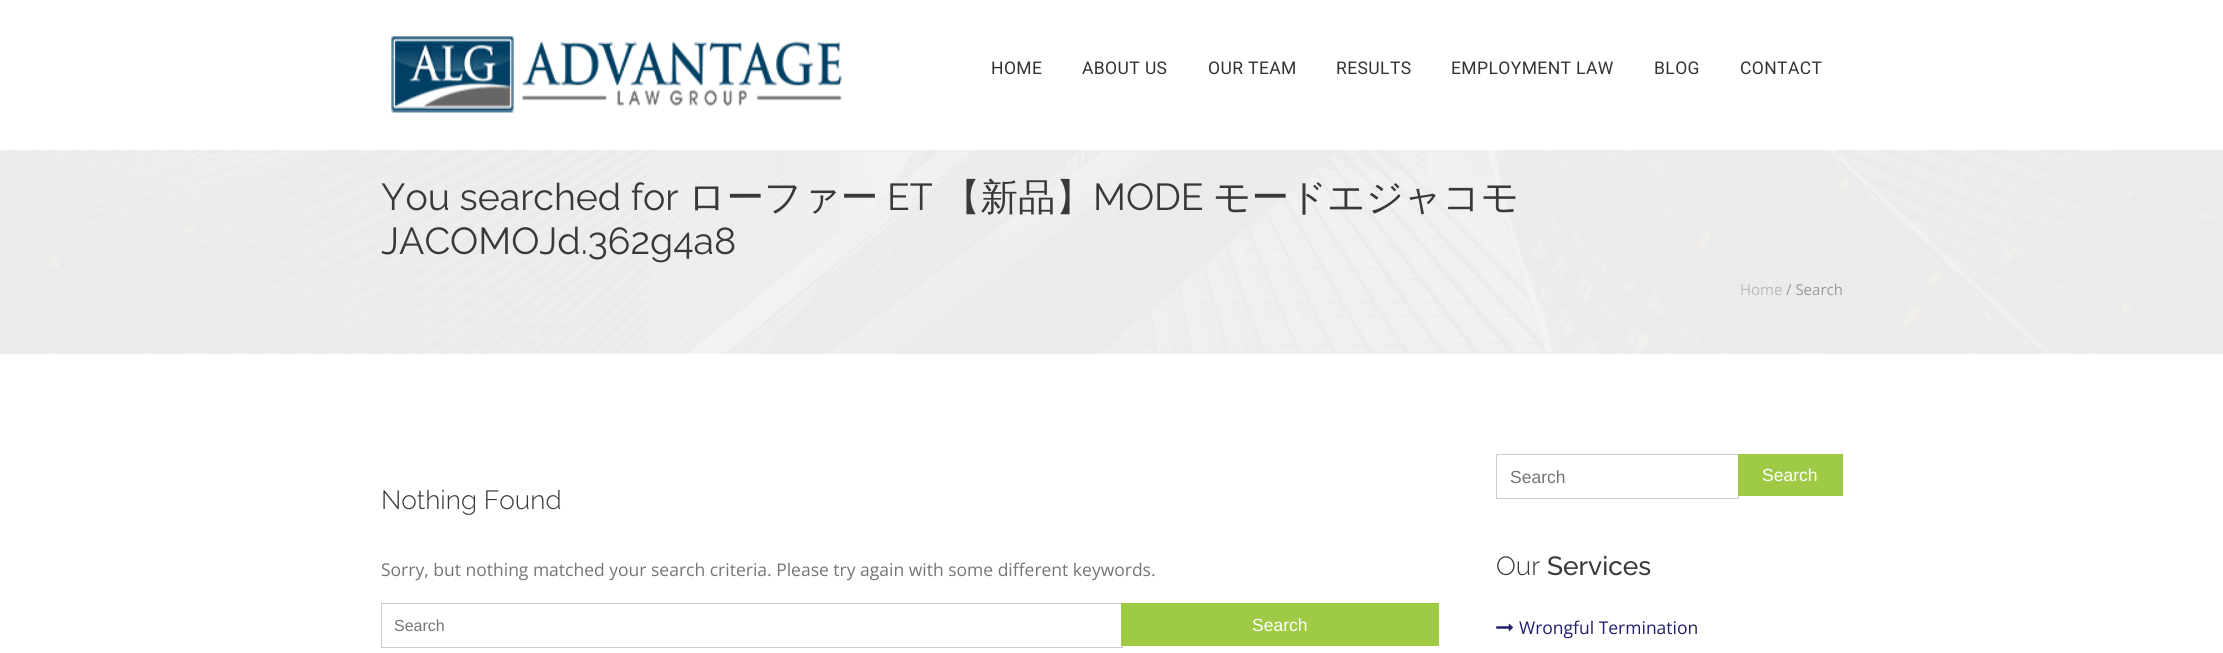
import math
import cairocffi as cairo

surface = cairo.ImageSurface(cairo.FORMAT_RGB24, 2223, 653)
ctx = cairo.Context(surface)
options = cairo.FontOptions()
options.set_hint_metrics(cairo.HINT_METRICS_OFF)
options.set_hint_style(cairo.HINT_STYLE_NONE)
ctx.set_font_options(options)
ctx.set_miter_limit(4)


def rgb(r, g, b):
    ctx.set_source_rgb(r / 255, g / 255, b / 255)


def face(family, size, italic, bold):
    ctx.select_font_face(family, cairo.FONT_SLANT_ITALIC if italic else cairo.FONT_SLANT_NORMAL, cairo.FONT_WEIGHT_BOLD if bold else cairo.FONT_WEIGHT_NORMAL)
    ctx.set_font_size(size)


def label(x, y, s):
    ctx.move_to(x, y)
    ctx.show_text(s)


def tracked(x, y, s, letter, word):
    ctx.move_to(x, y)
    for ch in s:
        ctx.show_text(ch)
        ctx.rel_move_to(letter + word * (ch == ' '), 0)


def rect(x, y, w, h):
    ctx.rectangle(x, y, w, h)
    ctx.fill()


def image(path, x, y, w, h):
    ctx.save()
    ctx.set_source_surface(cairo.ImageSurface.create_from_png(path), x, y)
    ctx.rectangle(x, y, w, h)
    ctx.fill()
    ctx.restore()


rgb(255, 255, 255)
ctx.paint()
image('image0.png', 391, 36, 451, 77)
face('Roboto', 17.5, 0, 0)
rgb(51, 51, 51)
tracked(991, 74, 'HOME', 0.4, 0)
tracked(1082, 74, 'ABOUT US', 0.4, 0)
tracked(1208, 74, 'OUR TEAM', 0.4, 0)
tracked(1336, 74, 'RESULTS', 0.4, 0)
tracked(1451, 74, 'EMPLOYMENT LAW', 0.4, 0)
tracked(1654, 74, 'BLOG', 0.4, 0)
tracked(1740, 74, 'CONTACT', 0.4, 0)
rgb(243, 243, 243)
rect(0, 150, 2223, 204)
image('image1.png', 0, 150, 2223, 204)
face('Raleway', 37.5, 0, 0)
rgb(57, 57, 57)
label(381, 210, 'You searched for')
face('WenQuanYi Zen Hei Medium', 37.5, 0, 0)
label(688, 210, 'ローファー')
face('Raleway', 37.5, 0, 0)
label(887, 210, 'ET')
face('WenQuanYi Zen Hei Medium', 37.5, 0, 0)
label(943, 210, '【新品】')
face('Raleway', 37.5, 0, 0)
label(1093, 210, 'MODE')
face('WenQuanYi Zen Hei Medium', 37.5, 0, 0)
label(1213, 210, 'モードエジャコモ')
face('Raleway', 37.5, 0, 0)
label(381, 254, 'JACOMOJd.362g4a8')
face('Open Sans', 15, 0, 0)
rgb(187, 187, 187)
label(1740, 295, 'Home')
rgb(153, 153, 153)
label(1786, 295, '/ Search')
face('Raleway Light', 26.25, 0, 0)
rgb(57, 57, 57)
label(381, 509, 'Nothing Found')
face('Open Sans', 17.5, 0, 0)
rgb(117, 117, 117)
label(381, 576, 'Sorry, but nothing matched your search criteria. Please try again with some different keywords.')
ctx.rectangle(381.5, 603.5, 741, 44)
rgb(204, 204, 204)
ctx.set_line_width(1)
ctx.stroke()
face('Liberation Sans', 16, 0, 0)
rgb(117, 117, 117)
label(394, 631, 'Search')
rgb(158, 202, 69)
rect(1121, 603, 318, 43)
face('Liberation Sans', 17.5, 0, 0)
rgb(255, 255, 255)
label(1252, 631, 'Search')
ctx.rectangle(1496.5, 454.5, 242, 44)
rgb(204, 204, 204)
ctx.stroke()
rgb(117, 117, 117)
label(1510, 483, 'Search')
rgb(158, 202, 69)
rect(1738, 454, 105, 42)
rgb(255, 255, 255)
label(1762, 481, 'Search')
face('Raleway Light', 26.25, 0, 0)
rgb(57, 57, 57)
label(1496, 575, 'Our')
face('Raleway Medium', 26.25, 0, 0)
label(1547, 575, 'Services')
image('image2.png', 1496, 623, 18, 9)
face('Open Sans', 17.5, 0, 0)
rgb(33, 28, 107)
label(1519, 634, 'Wrongful Termination')
surface.write_to_png('render.png')
